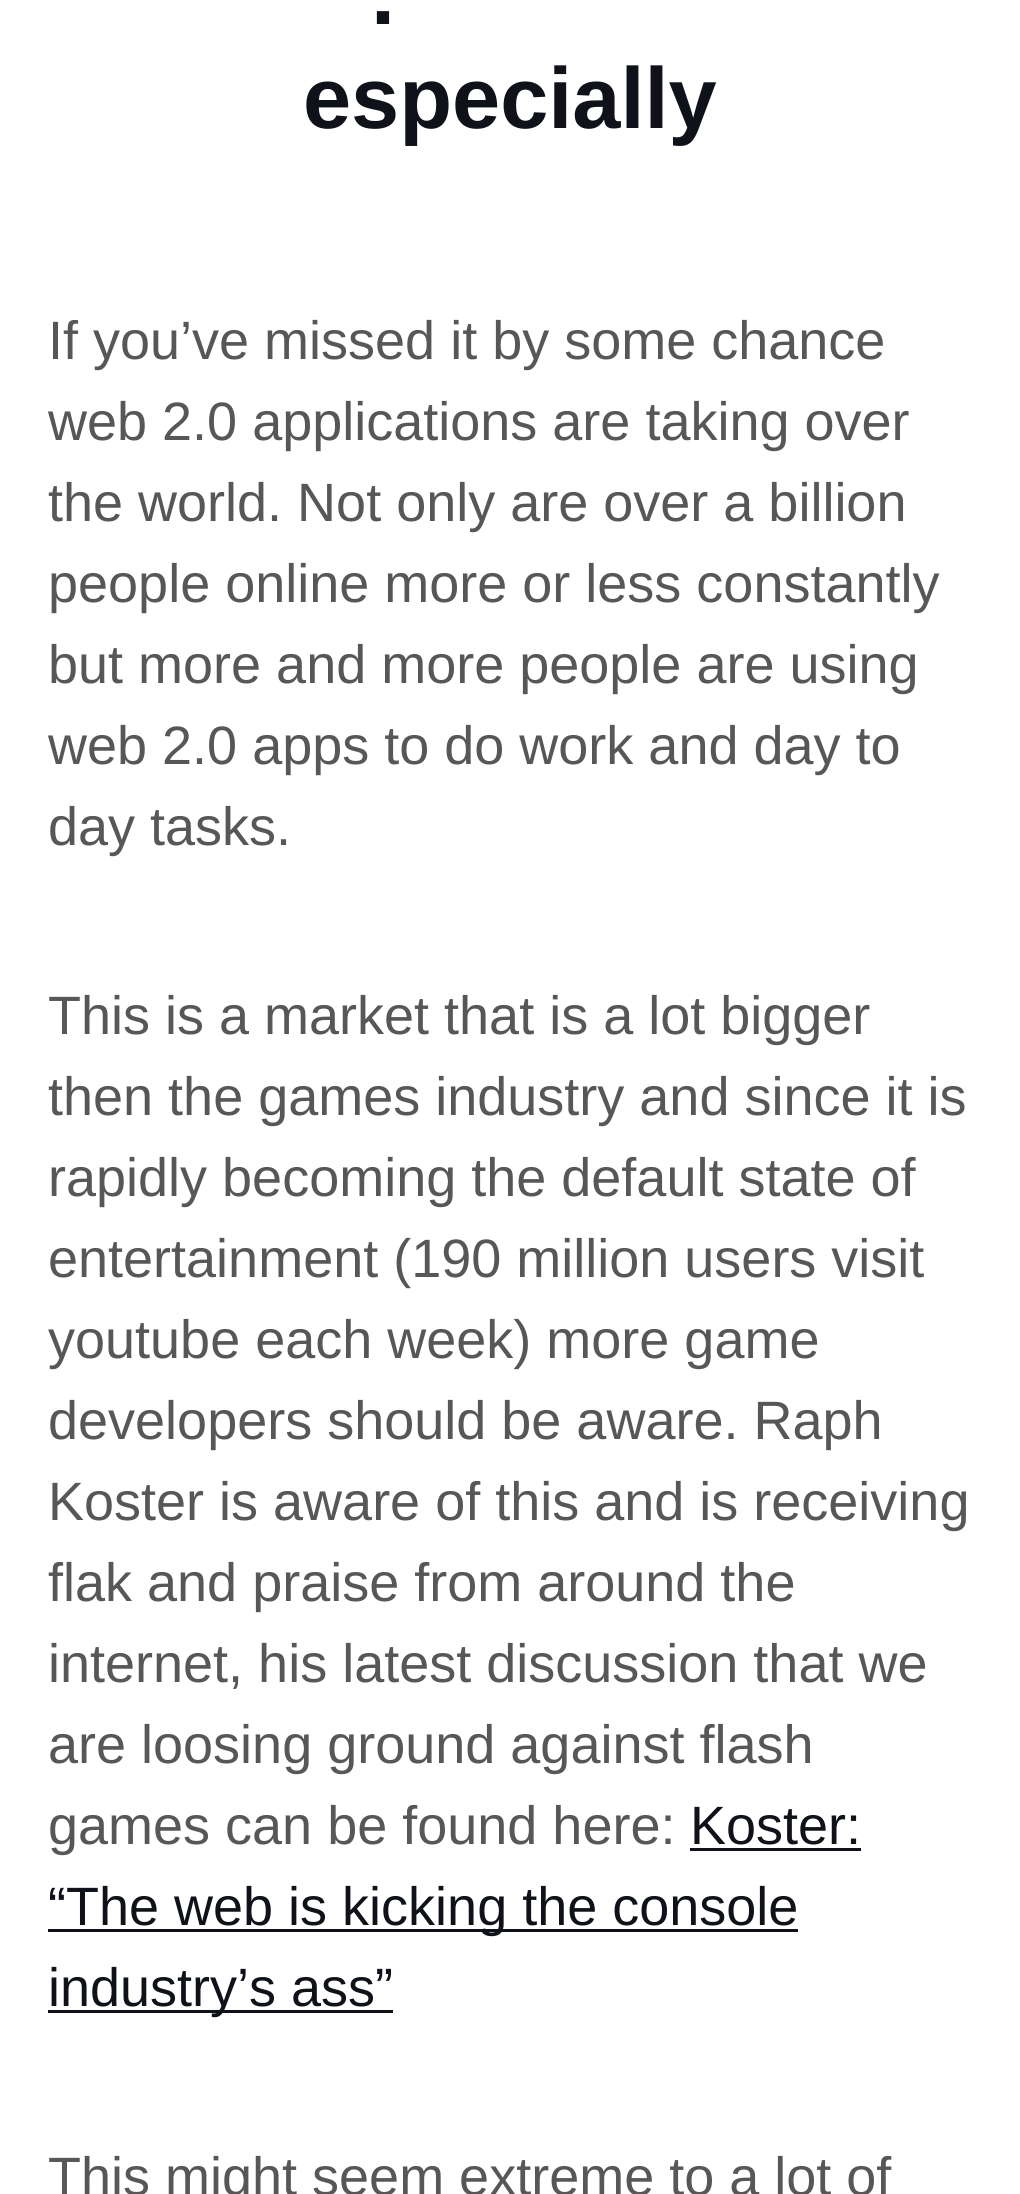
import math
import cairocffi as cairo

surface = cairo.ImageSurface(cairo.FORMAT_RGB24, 1020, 2194)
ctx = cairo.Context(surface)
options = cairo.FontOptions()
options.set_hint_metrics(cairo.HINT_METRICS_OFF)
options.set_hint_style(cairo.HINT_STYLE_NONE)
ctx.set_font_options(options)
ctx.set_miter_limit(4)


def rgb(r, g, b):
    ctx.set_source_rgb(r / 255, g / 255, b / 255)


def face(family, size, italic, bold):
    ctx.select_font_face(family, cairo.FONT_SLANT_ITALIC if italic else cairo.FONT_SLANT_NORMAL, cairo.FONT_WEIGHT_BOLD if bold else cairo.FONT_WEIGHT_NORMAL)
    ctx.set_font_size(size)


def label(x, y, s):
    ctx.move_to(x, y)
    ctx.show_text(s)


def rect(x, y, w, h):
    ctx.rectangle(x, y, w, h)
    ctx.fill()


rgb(255, 255, 255)
ctx.paint()
face('Liberation Sans', 86.5, 0, 1)
rgb(15, 18, 25)
label(371, 24, '.')
label(303, 128, 'especially')
face('Liberation Sans', 54, 0, 0)
rgb(87, 87, 87)
label(48, 359, 'If you’ve missed it by some chance')
label(48, 440, 'web 2.0 applications are taking over')
label(48, 521, 'the world. Not only are over a billion')
label(48, 602, 'people online more or less constantly')
label(48, 683, 'but more and more people are using')
label(48, 764, 'web 2.0 apps to do work and day to')
label(48, 845, 'day tasks.')
label(48, 1034, 'This is a market that is a lot bigger')
label(48, 1115, 'then the games industry and since it is')
label(48, 1196, 'rapidly becoming the default state of')
label(48, 1277, 'entertainment (190 million users visit')
label(48, 1358, 'youtube each week) more game')
label(48, 1439, 'developers should be aware. Raph')
label(48, 1520, 'Koster is aware of this and is receiving')
label(48, 1601, 'flak and praise from around the')
label(48, 1682, 'internet, his latest discussion that we')
label(48, 1763, 'are loosing ground against flash')
label(48, 1844, 'games can be found here:')
rgb(15, 18, 25)
label(690, 1844, 'Koster:')
rect(690, 1848, 171, 3)
rect(48, 1929, 750, 3)
label(48, 1925, '“The web is kicking the console')
rect(48, 2010, 345, 3)
label(48, 2006, 'industry’s ass”')
rgb(87, 87, 87)
label(48, 2195, 'This might seem extreme to a lot of')
surface.write_to_png('render.png')
